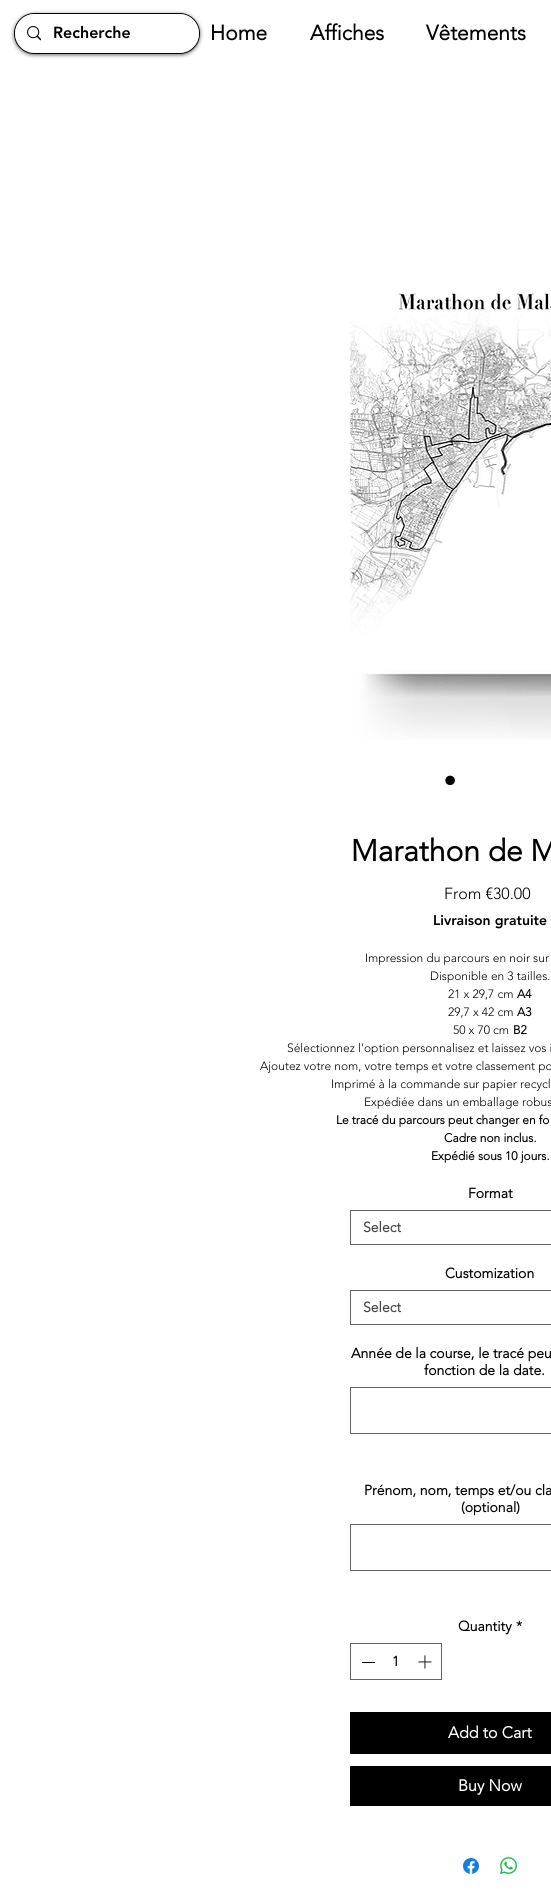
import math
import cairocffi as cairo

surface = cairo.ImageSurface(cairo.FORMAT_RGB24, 551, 1901)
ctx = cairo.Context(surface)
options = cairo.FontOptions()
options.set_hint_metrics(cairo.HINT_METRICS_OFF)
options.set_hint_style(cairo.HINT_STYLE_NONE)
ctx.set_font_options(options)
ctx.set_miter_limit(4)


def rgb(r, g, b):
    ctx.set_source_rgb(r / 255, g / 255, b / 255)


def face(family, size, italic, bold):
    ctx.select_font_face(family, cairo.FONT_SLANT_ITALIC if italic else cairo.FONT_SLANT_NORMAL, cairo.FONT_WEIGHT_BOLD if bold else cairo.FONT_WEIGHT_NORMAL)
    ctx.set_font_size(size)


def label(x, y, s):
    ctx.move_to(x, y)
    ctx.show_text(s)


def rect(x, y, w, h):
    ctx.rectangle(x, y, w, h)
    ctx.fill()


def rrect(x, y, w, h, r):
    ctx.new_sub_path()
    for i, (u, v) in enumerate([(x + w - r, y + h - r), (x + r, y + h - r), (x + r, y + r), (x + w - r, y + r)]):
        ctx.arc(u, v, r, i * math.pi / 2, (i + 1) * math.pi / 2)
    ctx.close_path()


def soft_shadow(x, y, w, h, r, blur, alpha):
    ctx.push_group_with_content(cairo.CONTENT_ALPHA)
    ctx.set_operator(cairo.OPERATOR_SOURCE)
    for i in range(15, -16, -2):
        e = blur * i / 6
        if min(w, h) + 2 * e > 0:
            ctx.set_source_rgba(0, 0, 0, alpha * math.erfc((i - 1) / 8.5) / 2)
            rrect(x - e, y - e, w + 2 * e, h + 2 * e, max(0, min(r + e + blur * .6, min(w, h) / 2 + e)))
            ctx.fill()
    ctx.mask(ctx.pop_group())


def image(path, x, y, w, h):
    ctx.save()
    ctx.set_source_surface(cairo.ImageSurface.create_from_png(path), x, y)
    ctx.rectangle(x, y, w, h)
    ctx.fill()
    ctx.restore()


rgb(255, 255, 255)
ctx.paint()
rgb(0, 0, 0)
soft_shadow(14, 14, 186, 41, 20.5, 2, 0.6)
rrect(14.5, 13.5, 185, 40, 20)
rgb(0, 0, 0)
ctx.set_line_width(1)
ctx.stroke()
rgb(255, 255, 255)
rrect(15, 14, 184, 39, 19.5)
ctx.fill()
image('image0.png', 27, 26, 14, 15)
face('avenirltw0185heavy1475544 Black', 16, 0, 0)
rgb(0, 0, 0)
label(53, 38, 'Recherche')
face('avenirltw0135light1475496', 21, 0, 1)
label(210, 40, 'Home')
label(310, 40, 'Affiches')
label(426, 40, 'Vêtements')
image('image1.png', 349, 291, 202, 449)
face('Liberation Sans', 35, 0, 0)
label(444, 792, '•')
face('avenirltw0135light1475496', 30, 0, 1)
label(351, 861, 'Marathon de M')
face('avenirltw0135light1475496 Light', 16, 0, 0)
label(444, 899, 'From €30.00')
face('avenirltw0185heavy1475544 Black', 14, 0, 0)
label(433, 925, 'Livraison gratuite')
face('avenirltw0135light1475496 Light', 12, 0, 0)
label(365, 962, 'Impression du parcours en noir sur')
label(430, 980, 'Disponible en 3 tailles.')
label(448, 998, '21 x 29,7 cm')
face('avenirltw0135light1475496', 12, 0, 1)
label(517, 998, 'A4')
face('avenirltw0135light1475496 Light', 12, 0, 0)
label(448, 1016, '29,7 x 42 cm')
face('avenirltw0135light1475496', 12, 0, 1)
label(517, 1016, 'A3')
face('avenirltw0135light1475496 Light', 12, 0, 0)
label(453, 1034, '50 x 70 cm')
face('avenirltw0135light1475496', 12, 0, 1)
label(513, 1034, 'B2')
face('avenirltw0135light1475496 Light', 12, 0, 0)
label(287, 1052, 'Sélectionnez l\'option personnalisez et laissez vos i')
label(260, 1070, 'Ajoutez votre nom, votre temps et votre classement po')
label(331, 1088, 'Imprimé à la commande sur papier recycl')
label(364, 1106, 'Expédiée dans un emballage robus')
face('avenirltw0135light1475496', 12, 0, 1)
label(336, 1124, 'Le tracé du parcours peut changer en fo')
label(444, 1142, 'Cadre non inclus.')
label(431, 1160, 'Expédié sous 10 jours.')
face('avenirltw0135light1475496', 14, 0, 1)
label(468, 1198, 'Format')
ctx.rectangle(350.5, 1210.5, 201, 34)
rgb(102, 102, 102)
ctx.stroke()
rgb(68, 68, 68)
label(363, 1232, 'Select')
rgb(0, 0, 0)
label(445, 1278, 'Customization')
ctx.rectangle(350.5, 1290.5, 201, 34)
rgb(102, 102, 102)
ctx.stroke()
rgb(68, 68, 68)
label(363, 1312, 'Select')
rgb(0, 0, 0)
label(351, 1358, 'Année de la course, le tracé peu')
label(424, 1375, 'fonction de la date.')
ctx.rectangle(350.5, 1387.5, 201, 46)
rgb(102, 102, 102)
ctx.stroke()
rgb(0, 0, 0)
label(364, 1495, 'Prénom, nom, temps et/ou cla')
label(461, 1512, '(optional)')
ctx.rectangle(350.5, 1524.5, 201, 46)
rgb(102, 102, 102)
ctx.stroke()
rgb(0, 0, 0)
label(458, 1631, 'Quantity')
label(516, 1631, '*')
ctx.rectangle(350.5, 1643.5, 91, 36)
rgb(102, 102, 102)
ctx.stroke()
rgb(0, 0, 0)
rect(362, 1662, 13, 1)
label(392, 1666, '1')
image('image2.png', 418, 1655, 14, 14)
rect(350, 1712, 201, 42)
face('avenirltw0135light1475496', 16, 0, 1)
rgb(255, 255, 255)
label(448, 1738, 'Add to Cart')
rgb(0, 0, 0)
rect(350, 1766, 201, 40)
rgb(255, 255, 255)
label(458, 1791, 'Buy Now')
image('image3.png', 463, 1858, 16, 16)
image('image4.png', 500, 1857, 17, 17)
surface.write_to_png('render.png')
